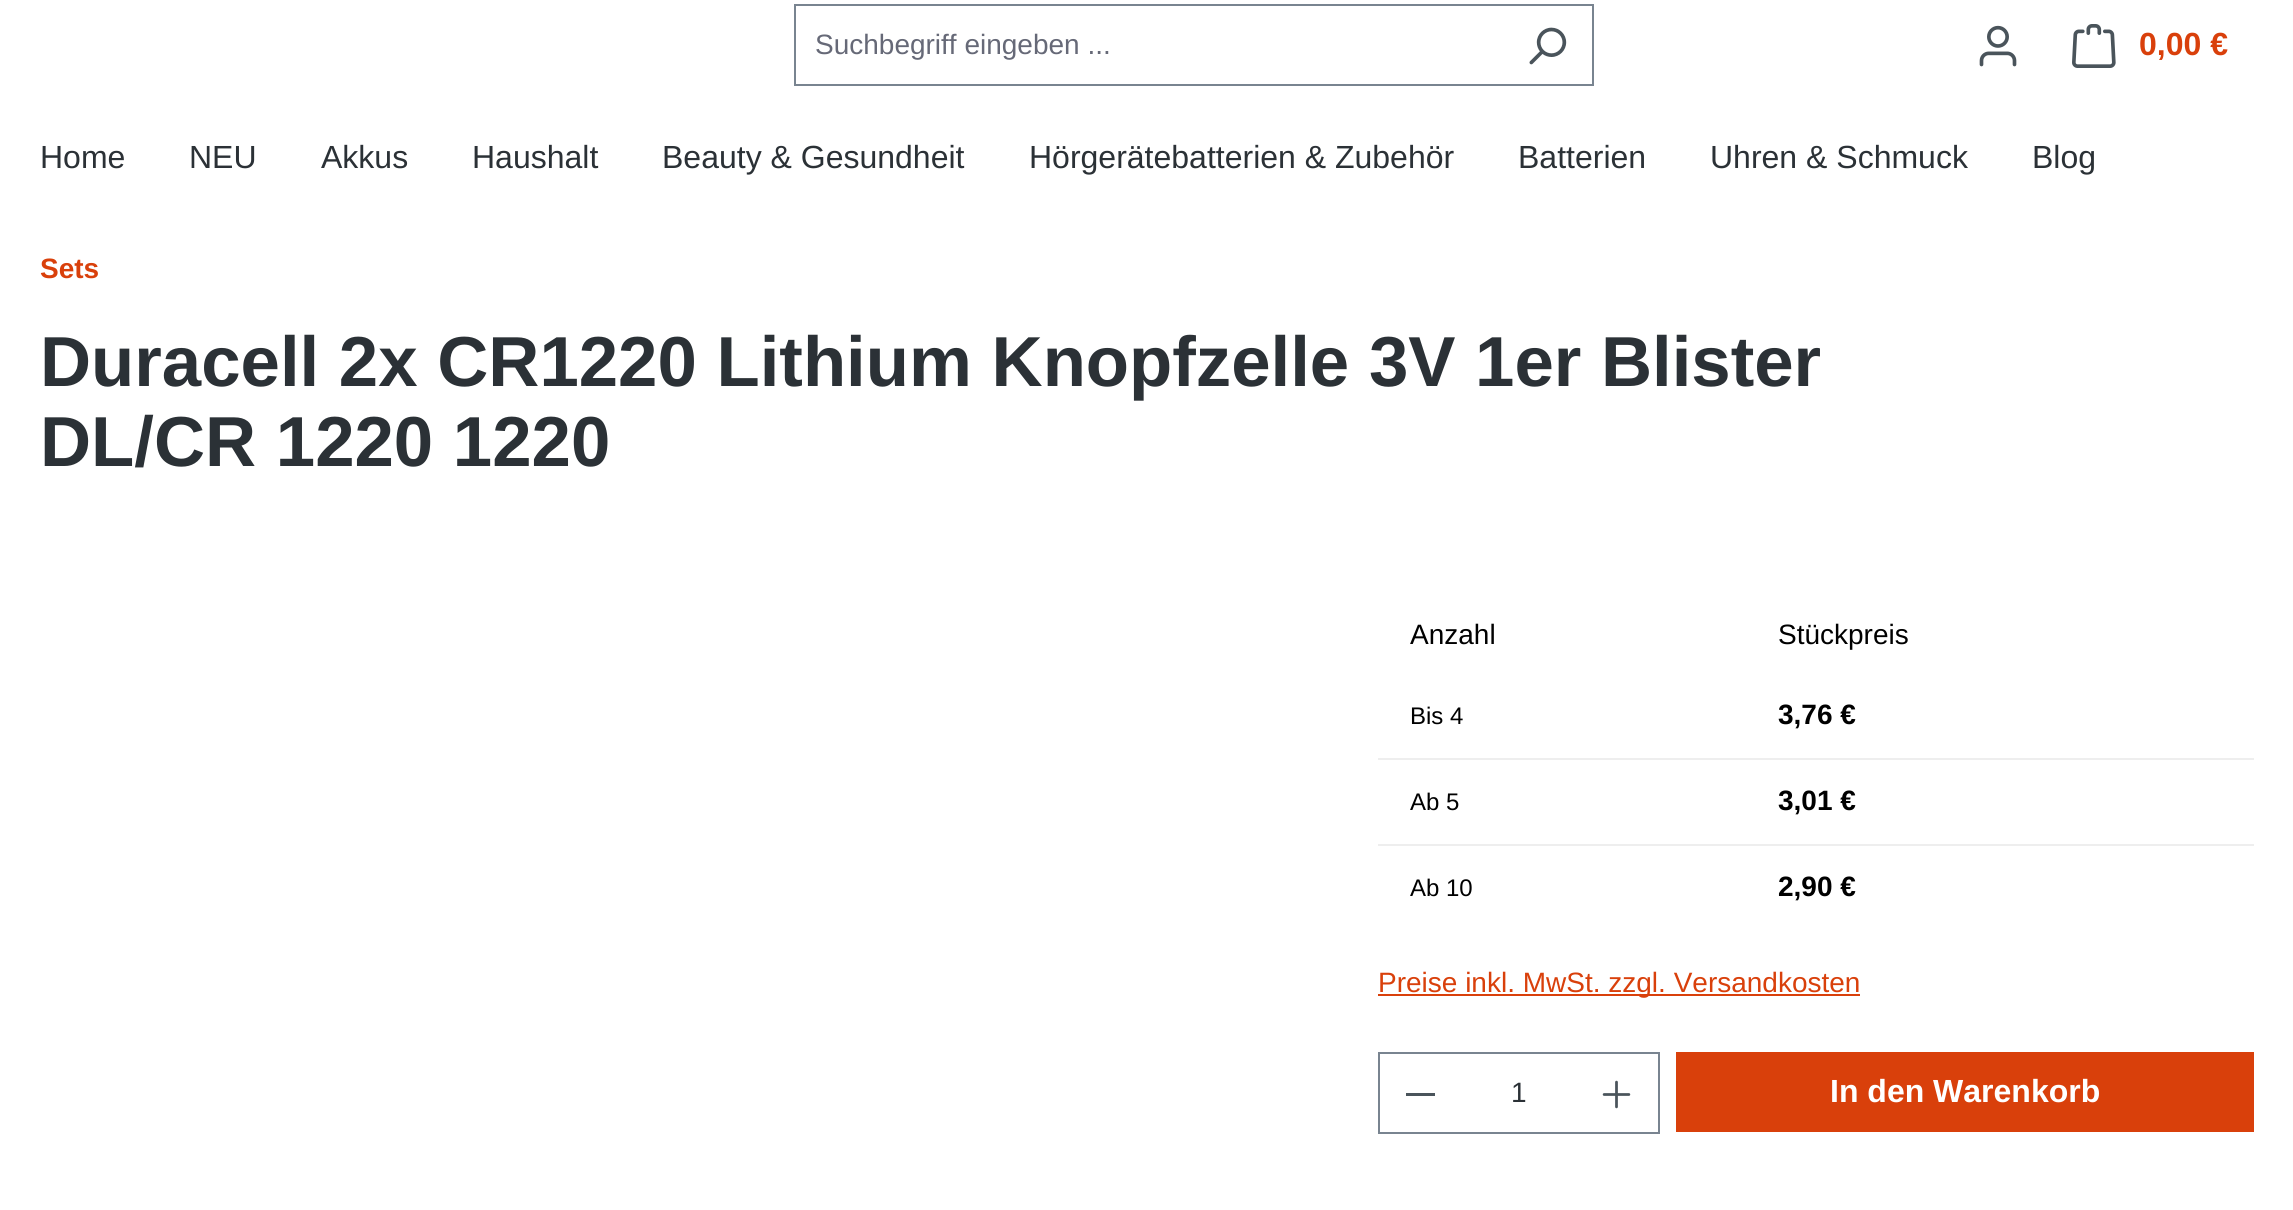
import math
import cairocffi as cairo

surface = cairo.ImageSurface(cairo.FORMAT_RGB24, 2293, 1210)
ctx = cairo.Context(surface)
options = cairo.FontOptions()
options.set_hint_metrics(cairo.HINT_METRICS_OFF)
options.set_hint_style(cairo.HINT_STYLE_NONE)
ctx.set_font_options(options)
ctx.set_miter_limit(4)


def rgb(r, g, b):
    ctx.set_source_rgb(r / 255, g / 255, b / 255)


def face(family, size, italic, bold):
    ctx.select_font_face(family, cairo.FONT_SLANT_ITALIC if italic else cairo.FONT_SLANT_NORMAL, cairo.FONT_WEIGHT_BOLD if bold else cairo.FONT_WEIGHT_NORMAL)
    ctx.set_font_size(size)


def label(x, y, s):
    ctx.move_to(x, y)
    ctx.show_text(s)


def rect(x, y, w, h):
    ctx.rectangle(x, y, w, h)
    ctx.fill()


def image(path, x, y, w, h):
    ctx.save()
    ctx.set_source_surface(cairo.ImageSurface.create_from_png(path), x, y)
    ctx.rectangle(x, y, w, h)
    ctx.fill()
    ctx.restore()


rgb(255, 255, 255)
ctx.paint()
rgb(121, 132, 144)
rect(794, 4, 800, 2)
rect(794, 84, 708, 2)
rect(794, 4, 2, 82)
face('Liberation Sans', 28, 0, 0)
rgb(102, 105, 119)
label(815, 54, 'Suchbegriff eingeben ...')
rgb(121, 132, 144)
rect(1592, 4, 2, 82)
rect(1500, 84, 94, 2)
image('image0.png', 1529, 27, 38, 38)
image('image1.png', 1979, 25, 38, 42)
image('image2.png', 2072, 24, 44, 44)
face('Liberation Sans', 32, 0, 1)
rgb(217, 64, 11)
label(2139, 55, '0,00 €')
face('Liberation Sans', 32, 0, 0)
rgb(43, 49, 54)
label(40, 168, 'Home')
label(189, 168, 'NEU')
label(321, 168, 'Akkus')
label(472, 168, 'Haushalt')
label(662, 168, 'Beauty & Gesundheit')
label(1029, 168, 'Hörgerätebatterien & Zubehör')
label(1518, 168, 'Batterien')
label(1710, 168, 'Uhren & Schmuck')
label(2032, 168, 'Blog')
face('Liberation Sans', 28, 0, 1)
rgb(217, 64, 11)
label(40, 278, 'Sets')
face('Liberation Sans', 70.75, 0, 1)
rgb(43, 49, 54)
label(40, 386, 'Duracell 2x CR1220 Lithium Knopfzelle 3V 1er Blister')
label(40, 466, 'DL/CR 1220 1220')
face('Liberation Sans', 28, 0, 0)
rgb(0, 0, 0)
label(1410, 644, 'Anzahl')
label(1778, 644, 'Stückpreis')
face('Liberation Sans', 24, 0, 0)
label(1410, 724, 'Bis 4')
face('Liberation Sans', 28, 0, 1)
label(1778, 724, '3,76 €')
rgb(238, 238, 238)
rect(1378, 758, 876, 2)
face('Liberation Sans', 24, 0, 0)
rgb(0, 0, 0)
label(1410, 810, 'Ab 5')
face('Liberation Sans', 28, 0, 1)
label(1778, 810, '3,01 €')
rgb(238, 238, 238)
rect(1378, 844, 876, 2)
face('Liberation Sans', 24, 0, 0)
rgb(0, 0, 0)
label(1410, 896, 'Ab 10')
face('Liberation Sans', 28, 0, 1)
label(1778, 896, '2,90 €')
rgb(217, 64, 11)
rect(1378, 994, 482, 2)
face('Liberation Sans', 28, 0, 0)
label(1378, 992, 'Preise inkl. MwSt. zzgl. Versandkosten')
rgb(121, 132, 144)
rect(1378, 1052, 282, 2)
rect(1378, 1132, 200, 2)
rect(1378, 1052, 2, 82)
rgb(74, 84, 91)
rect(1406, 1093, 29, 3)
rgb(43, 49, 54)
label(1511, 1102, '1')
rgb(121, 132, 144)
rect(1658, 1052, 2, 82)
rect(1576, 1132, 84, 2)
image('image3.png', 1602, 1080, 29, 29)
rgb(217, 64, 11)
rect(1676, 1052, 578, 80)
face('Liberation Sans', 32, 0, 1)
rgb(255, 255, 255)
label(1830, 1102, 'In den Warenkorb')
surface.write_to_png('render.png')
